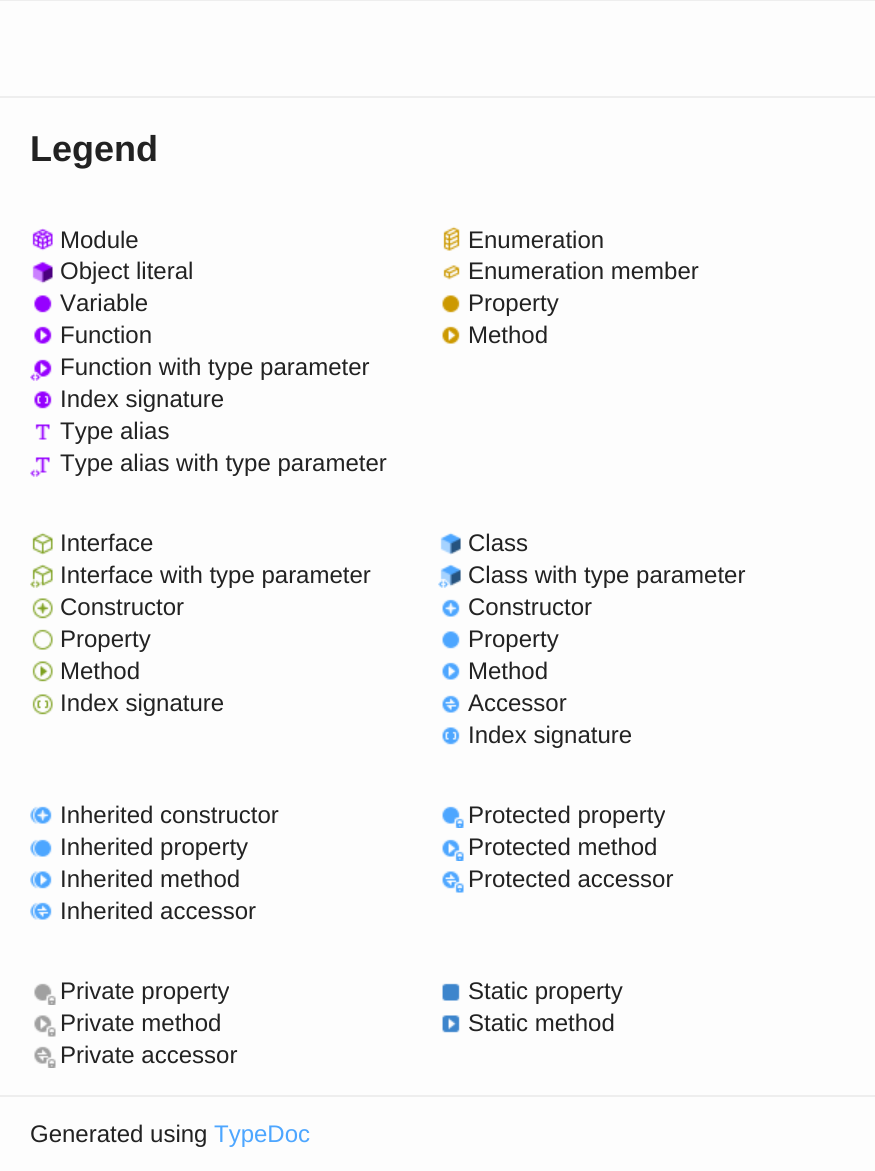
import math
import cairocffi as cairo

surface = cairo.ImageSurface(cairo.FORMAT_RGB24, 875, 1171)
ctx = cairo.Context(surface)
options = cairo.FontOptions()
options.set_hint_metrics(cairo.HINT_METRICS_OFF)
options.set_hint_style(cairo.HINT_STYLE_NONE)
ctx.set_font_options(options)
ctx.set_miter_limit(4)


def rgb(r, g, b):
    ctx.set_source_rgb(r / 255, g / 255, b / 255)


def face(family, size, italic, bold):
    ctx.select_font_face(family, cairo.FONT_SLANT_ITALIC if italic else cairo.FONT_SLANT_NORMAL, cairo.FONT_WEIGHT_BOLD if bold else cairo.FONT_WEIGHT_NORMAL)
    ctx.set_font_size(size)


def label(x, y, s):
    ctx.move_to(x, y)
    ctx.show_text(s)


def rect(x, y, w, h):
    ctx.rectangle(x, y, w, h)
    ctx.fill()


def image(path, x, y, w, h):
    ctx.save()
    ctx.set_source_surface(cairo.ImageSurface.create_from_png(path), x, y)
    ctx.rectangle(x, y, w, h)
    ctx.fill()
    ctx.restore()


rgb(253, 253, 253)
ctx.paint()
rgb(238, 238, 238)
rect(0, 0, 875, 1)
rect(0, 96, 875, 2)
rect(0, 1095, 875, 2)
face('Liberation Sans', 36, 0, 1)
rgb(34, 34, 34)
label(30, 161, 'Legend')
image('image0.png', 32, 228, 21, 23)
face('Liberation Sans', 24, 0, 0)
label(60, 248, 'Module')
image('image1.png', 32, 261, 21, 23)
label(60, 279, 'Object literal')
image('image2.png', 34, 295, 18, 18)
label(60, 311, 'Variable')
image('image3.png', 34, 326, 18, 18)
label(60, 343, 'Function')
image('image4.png', 30, 359, 22, 22)
label(60, 375, 'Function with type parameter')
image('image5.png', 34, 391, 18, 18)
label(60, 407, 'Index signature')
image('image6.png', 35, 424, 15, 16)
label(60, 439, 'Type alias')
image('image7.png', 30, 457, 20, 20)
label(60, 471, 'Type alias with type parameter')
image('image8.png', 443, 226, 17, 25)
label(468, 248, 'Enumeration')
image('image9.png', 443, 265, 17, 15)
label(468, 279, 'Enumeration member')
image('image10.png', 442, 295, 18, 18)
label(468, 311, 'Property')
image('image11.png', 442, 326, 18, 18)
label(468, 343, 'Method')
image('image12.png', 32, 532, 21, 23)
label(60, 551, 'Interface')
image('image13.png', 30, 564, 23, 24)
label(60, 583, 'Interface with type parameter')
image('image14.png', 32, 598, 21, 21)
label(60, 615, 'Constructor')
image('image15.png', 32, 629, 21, 21)
label(60, 647, 'Property')
image('image16.png', 32, 661, 21, 21)
label(60, 679, 'Method')
image('image17.png', 32, 694, 21, 21)
label(60, 711, 'Index signature')
image('image18.png', 440, 532, 21, 23)
label(468, 551, 'Class')
image('image19.png', 438, 564, 23, 24)
label(468, 583, 'Class with type parameter')
image('image20.png', 442, 599, 18, 18)
label(468, 615, 'Constructor')
image('image21.png', 442, 631, 18, 18)
label(468, 647, 'Property')
image('image22.png', 442, 662, 18, 18)
label(468, 679, 'Method')
image('image23.png', 442, 695, 18, 18)
label(468, 711, 'Accessor')
image('image24.png', 442, 727, 18, 18)
label(468, 743, 'Index signature')
image('image25.png', 30, 806, 22, 18)
label(60, 823, 'Inherited constructor')
image('image26.png', 30, 839, 22, 18)
label(60, 855, 'Inherited property')
image('image27.png', 30, 871, 22, 18)
label(60, 887, 'Inherited method')
image('image28.png', 30, 902, 22, 18)
label(60, 919, 'Inherited accessor')
image('image29.png', 442, 806, 22, 22)
label(468, 823, 'Protected property')
image('image30.png', 442, 839, 22, 22)
label(468, 855, 'Protected method')
image('image31.png', 442, 871, 22, 22)
label(468, 887, 'Protected accessor')
image('image32.png', 34, 983, 22, 22)
label(60, 999, 'Private property')
image('image33.png', 34, 1015, 22, 22)
label(60, 1031, 'Private method')
image('image34.png', 34, 1046, 22, 22)
label(60, 1063, 'Private accessor')
image('image35.png', 442, 983, 18, 18)
label(468, 999, 'Static property')
image('image36.png', 442, 1015, 18, 18)
label(468, 1031, 'Static method')
label(30, 1142, 'Generated using')
rgb(77, 166, 255)
label(214, 1142, 'TypeDoc')
surface.write_to_png('render.png')
